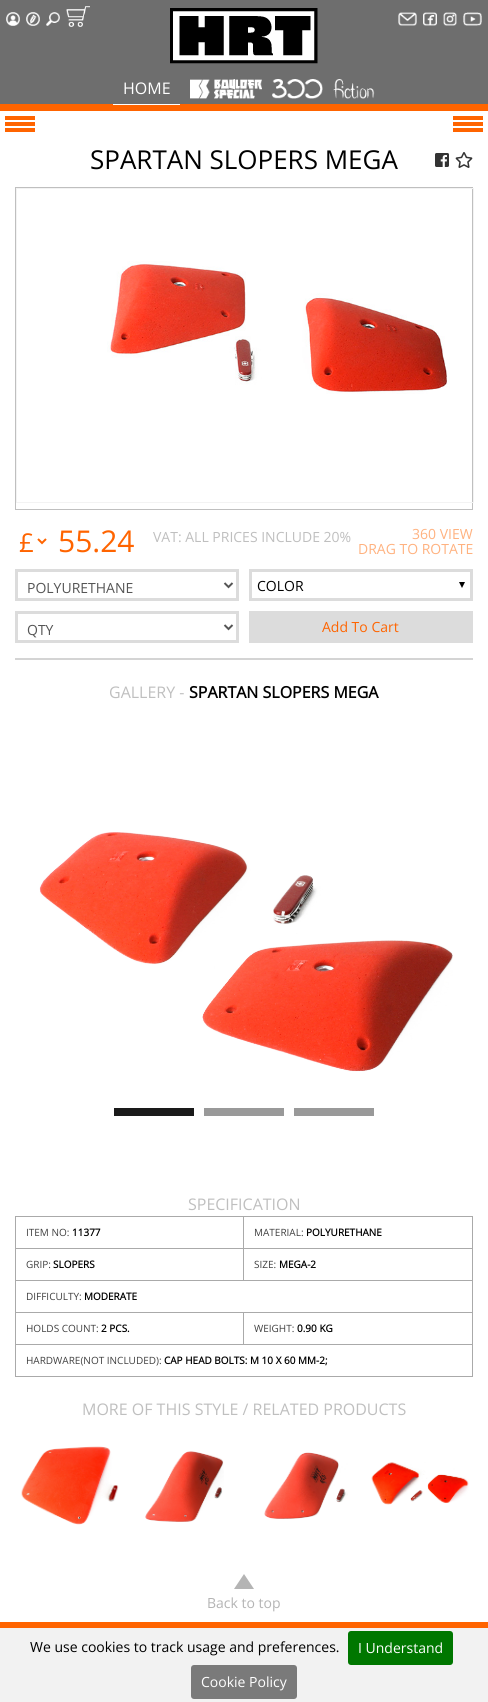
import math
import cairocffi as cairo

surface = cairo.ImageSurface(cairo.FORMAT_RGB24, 488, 1702)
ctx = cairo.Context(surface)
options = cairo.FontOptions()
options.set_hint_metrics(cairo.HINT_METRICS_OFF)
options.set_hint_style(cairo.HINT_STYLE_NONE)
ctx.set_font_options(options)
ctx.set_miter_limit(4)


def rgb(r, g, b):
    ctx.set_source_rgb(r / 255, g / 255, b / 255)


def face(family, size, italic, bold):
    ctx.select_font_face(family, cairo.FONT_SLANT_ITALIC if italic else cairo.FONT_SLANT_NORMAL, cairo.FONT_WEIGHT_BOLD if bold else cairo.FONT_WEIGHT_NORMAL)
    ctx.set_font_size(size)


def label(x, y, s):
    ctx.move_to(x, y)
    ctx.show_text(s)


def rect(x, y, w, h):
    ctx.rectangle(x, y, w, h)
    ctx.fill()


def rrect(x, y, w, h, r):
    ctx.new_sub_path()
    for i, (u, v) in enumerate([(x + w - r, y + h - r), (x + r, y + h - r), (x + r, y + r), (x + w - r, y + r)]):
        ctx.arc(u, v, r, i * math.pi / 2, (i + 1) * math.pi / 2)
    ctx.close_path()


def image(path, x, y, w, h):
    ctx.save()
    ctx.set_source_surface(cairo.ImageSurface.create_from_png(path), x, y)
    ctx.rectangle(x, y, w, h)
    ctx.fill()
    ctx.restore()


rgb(255, 255, 255)
ctx.paint()
rgb(110, 110, 110)
rect(0, 0, 488, 104)
rgb(255, 100, 0)
rect(0, 104, 488, 7)
image('image0.png', 6, 12, 14, 14)
image('image1.png', 26, 12, 14, 14)
image('image2.png', 46, 12, 14, 14)
image('image3.png', 66, 6, 24, 21)
image('image4.png', 398, 12, 19, 14)
image('image5.png', 423, 12, 14, 14)
image('image6.png', 443, 12, 14, 14)
image('image7.png', 463, 12, 19, 14)
image('image8.png', 170, 8, 148, 56)
face('Open Sans', 16, 0, 0)
rgb(255, 255, 255)
label(123, 94, 'HOME')
rect(113, 104, 67, 1)
image('image9.png', 190, 79, 72, 20)
image('image10.png', 272, 79, 51, 20)
image('image11.png', 333, 79, 42, 20)
rgb(255, 100, 0)
rect(5, 116, 30, 4)
rect(5, 122, 30, 4)
rect(5, 128, 30, 4)
rect(453, 116, 30, 4)
rect(453, 122, 30, 4)
rect(453, 128, 30, 4)
face('Open Sans', 26, 0, 0)
rgb(0, 0, 0)
label(90, 169, 'SPARTAN SLOPERS MEGA')
image('image12.png', 435, 153, 14, 14)
image('image13.png', 455, 152, 18, 16)
ctx.rectangle(15.5, 187.5, 457, 322)
rgb(191, 191, 191)
ctx.set_line_width(1)
ctx.stroke()
ctx.rectangle(16.5, 188.5, 457, 314)
rgb(243, 243, 243)
ctx.stroke()
image('image14.png', 107, 261, 343, 133)
rgb(212, 212, 212)
rect(15, 658, 458, 2)
ctx.new_path()
ctx.move_to(38, 539)
ctx.line_to(42, 543)
ctx.line_to(46, 539)
rgb(255, 100, 0)
ctx.set_line_width(2)
ctx.stroke()
label(19, 552, '£')
face('Open Sans', 30, 0, 0)
label(58, 552, '55.24')
face('Open Sans', 14, 0, 0)
rgb(191, 191, 191)
label(153, 542, 'VAT: ALL PRICES INCLUDE 20%')
rgb(255, 178, 128)
label(412, 539, '360 VIEW')
label(358, 554, 'DRAG TO ROTATE')
ctx.rectangle(16.5, 570.5, 221, 29)
rgb(220, 220, 220)
ctx.set_line_width(3)
ctx.stroke()
ctx.new_path()
ctx.move_to(224.5, 583)
ctx.line_to(228.5, 587)
ctx.line_to(232.5, 583)
rgb(85, 85, 85)
ctx.set_line_width(2)
ctx.stroke()
label(27, 593, 'POLYURETHANE')
ctx.rectangle(250.5, 570.5, 221, 29)
rgb(220, 220, 220)
ctx.set_line_width(3)
ctx.stroke()
rgb(0, 0, 0)
label(257, 591, 'COLOR')
ctx.new_path()
ctx.move_to(459, 582)
ctx.line_to(465, 582)
ctx.line_to(462, 588)
ctx.close_path()
ctx.fill()
ctx.rectangle(16.5, 612.5, 221, 29)
rgb(220, 220, 220)
ctx.stroke()
ctx.new_path()
ctx.move_to(224.5, 625)
ctx.line_to(228.5, 629)
ctx.line_to(232.5, 625)
rgb(85, 85, 85)
ctx.set_line_width(2)
ctx.stroke()
label(27, 635, 'QTY')
rgb(220, 220, 220)
rect(249, 611, 224, 32)
rgb(255, 100, 0)
label(322, 632, 'Add To Cart')
face('Open Sans', 16, 0, 0)
rgb(191, 191, 191)
label(109, 698, 'GALLERY -')
face('Open Sans', 16, 0, 1)
rgb(0, 0, 0)
label(189, 698, 'SPARTAN SLOPERS MEGA')
image('image15.png', 39, 832, 414, 240)
rgb(26, 26, 26)
rect(114, 1108, 80, 8)
rgb(153, 153, 153)
rect(204, 1108, 80, 8)
rect(294, 1108, 80, 8)
face('Open Sans', 16, 0, 0)
rgb(191, 191, 191)
label(188, 1210, 'SPECIFICATION')
ctx.rectangle(15.5, 1216.5, 457, 160)
rgb(170, 170, 170)
ctx.set_line_width(1)
ctx.stroke()
rect(16, 1312, 456, 1)
rect(16, 1248, 456, 1)
face('Open Sans', 10, 0, 0)
rgb(64, 64, 64)
label(26, 1236, 'ITEM NO:')
face('Open Sans', 10, 0, 1)
rgb(0, 0, 0)
label(72, 1236, '11377')
rgb(170, 170, 170)
rect(243, 1217, 1, 32)
face('Open Sans', 10, 0, 0)
rgb(64, 64, 64)
label(254, 1236, 'MATERIAL:')
face('Open Sans', 10, 0, 1)
rgb(0, 0, 0)
label(306, 1236, 'POLYURETHANE')
rgb(170, 170, 170)
rect(16, 1280, 456, 1)
face('Open Sans', 10, 0, 0)
rgb(64, 64, 64)
label(26, 1268, 'GRIP:')
face('Open Sans', 10, 0, 1)
rgb(0, 0, 0)
label(53, 1268, 'SLOPERS')
rgb(170, 170, 170)
rect(243, 1249, 1, 64)
face('Open Sans', 10, 0, 0)
rgb(64, 64, 64)
label(254, 1268, 'SIZE:')
face('Open Sans', 10, 0, 1)
rgb(0, 0, 0)
label(279, 1268, 'MEGA-2')
rgb(255, 255, 255)
rect(243, 1281, 1, 31)
face('Open Sans', 10, 0, 0)
rgb(64, 64, 64)
label(26, 1300, 'DIFFICULTY:')
face('Open Sans', 10, 0, 1)
rgb(0, 0, 0)
label(84, 1300, 'MODERATE')
rgb(170, 170, 170)
rect(16, 1344, 456, 1)
face('Open Sans', 10, 0, 0)
rgb(64, 64, 64)
label(26, 1332, 'HOLDS COUNT:')
face('Open Sans', 10, 0, 1)
rgb(0, 0, 0)
label(101, 1332, '2 PCS.')
rgb(170, 170, 170)
rect(243, 1313, 1, 32)
face('Open Sans', 10, 0, 0)
rgb(64, 64, 64)
label(254, 1332, 'WEIGHT:')
face('Open Sans', 10, 0, 1)
rgb(0, 0, 0)
label(297, 1332, '0.90 KG')
face('Open Sans', 10, 0, 0)
rgb(64, 64, 64)
label(26, 1364, 'HARDWARE(NOT INCLUDED):')
face('Open Sans', 10, 0, 1)
rgb(0, 0, 0)
label(164, 1364, 'CAP HEAD BOLTS: M 10 X 60 MM-2;')
face('Open Sans', 16, 0, 0)
rgb(191, 191, 191)
label(82, 1415, 'MORE OF THIS STYLE / RELATED PRODUCTS')
image('image16.png', 21, 1446, 98, 79)
image('image17.png', 145, 1451, 79, 71)
image('image18.png', 264, 1452, 84, 67)
image('image19.png', 371, 1462, 98, 43)
rgb(255, 100, 0)
rect(0, 1622, 488, 6)
rgb(180, 180, 180)
ctx.new_path()
ctx.move_to(254, 1589)
ctx.line_to(234, 1589)
ctx.line_to(244, 1574)
ctx.close_path()
ctx.fill()
face('Open Sans', 14, 0, 0)
label(207, 1608, 'Back to top')
rgb(242, 242, 242)
rect(0, 1628, 488, 74)
rgb(0, 0, 0)
label(30, 1652, 'We use cookies to track usage and preferences.')
rgb(0, 119, 0)
rrect(348, 1631, 105, 34, 3)
ctx.fill()
rgb(255, 255, 255)
label(358, 1653, 'I Understand')
rgb(122, 122, 122)
rrect(191, 1665, 106, 34, 3)
ctx.fill()
rgb(255, 255, 255)
label(201, 1687, 'Cookie Policy')
surface.write_to_png('render.png')
